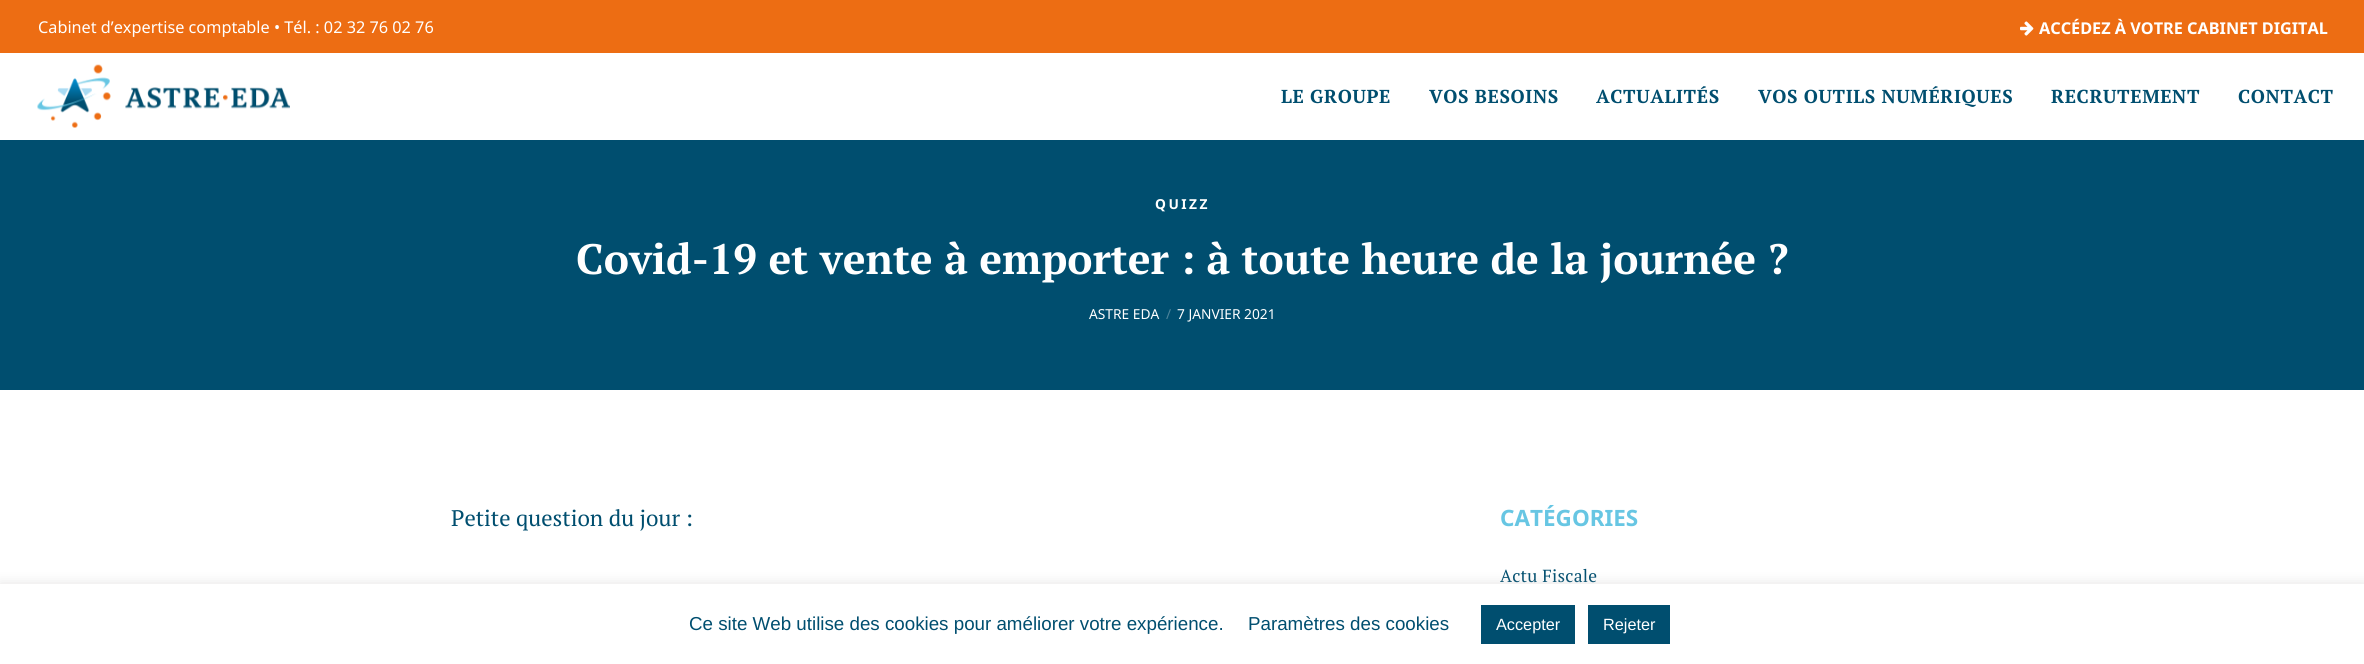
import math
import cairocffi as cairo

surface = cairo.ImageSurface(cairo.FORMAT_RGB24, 2364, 664)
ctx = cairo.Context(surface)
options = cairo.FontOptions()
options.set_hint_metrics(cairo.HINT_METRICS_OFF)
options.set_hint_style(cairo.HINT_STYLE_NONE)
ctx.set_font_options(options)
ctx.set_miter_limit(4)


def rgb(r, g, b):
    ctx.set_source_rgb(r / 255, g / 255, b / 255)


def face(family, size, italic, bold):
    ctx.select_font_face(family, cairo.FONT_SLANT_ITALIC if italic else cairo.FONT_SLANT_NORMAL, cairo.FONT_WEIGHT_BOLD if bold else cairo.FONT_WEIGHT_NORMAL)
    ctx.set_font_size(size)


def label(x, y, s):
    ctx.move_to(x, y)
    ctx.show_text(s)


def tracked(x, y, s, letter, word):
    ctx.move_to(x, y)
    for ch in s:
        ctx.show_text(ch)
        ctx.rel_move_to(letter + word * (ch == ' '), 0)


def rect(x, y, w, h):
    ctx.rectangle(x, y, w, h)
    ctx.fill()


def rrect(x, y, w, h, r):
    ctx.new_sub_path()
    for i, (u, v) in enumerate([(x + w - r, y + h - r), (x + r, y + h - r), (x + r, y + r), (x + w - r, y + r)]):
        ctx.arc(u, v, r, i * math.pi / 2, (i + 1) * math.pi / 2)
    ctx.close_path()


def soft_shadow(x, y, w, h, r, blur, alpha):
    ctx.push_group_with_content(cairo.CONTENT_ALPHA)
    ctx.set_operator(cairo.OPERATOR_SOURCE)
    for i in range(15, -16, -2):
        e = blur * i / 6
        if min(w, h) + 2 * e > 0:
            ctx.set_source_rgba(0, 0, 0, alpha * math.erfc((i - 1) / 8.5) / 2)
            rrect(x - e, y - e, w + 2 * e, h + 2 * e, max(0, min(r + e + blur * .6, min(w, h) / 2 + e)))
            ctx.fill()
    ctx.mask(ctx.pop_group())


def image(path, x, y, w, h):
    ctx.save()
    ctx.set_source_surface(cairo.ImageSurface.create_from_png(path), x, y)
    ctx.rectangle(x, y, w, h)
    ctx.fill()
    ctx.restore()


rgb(0, 78, 111)
ctx.paint()
rgb(237, 109, 19)
rect(0, 0, 2364, 53)
face('Noto Sans', 16.25, 0, 0)
rgb(255, 255, 255)
label(38, 33, 'Cabinet d’expertise comptable • Tél. : 02 32 76 02 76')
image('image0.png', 2020, 21, 14, 15)
face('Noto Sans', 16.25, 0, 1)
label(2039, 34, 'ACCÉDEZ À VOTRE CABINET DIGITAL')
rect(0, 53, 2364, 87)
image('image1.png', 37, 64, 253, 64)
face('PT Serif', 18.75, 0, 1)
rgb(0, 78, 111)
tracked(1281, 103, 'LE GROUPE', 0.6, 0)
tracked(1429, 103, 'VOS BESOINS', 0.6, 0)
tracked(1596, 103, 'ACTUALITÉS', 0.6, 0)
tracked(1758, 103, 'VOS OUTILS NUMÉRIQUES', 0.6, 0)
tracked(2051, 103, 'RECRUTEMENT', 0.6, 0)
tracked(2238, 103, 'CONTACT', 0.6, 0)
face('Noto Sans', 13.75, 0, 1)
rgb(255, 255, 255)
tracked(1155, 209, 'QUIZZ', 2.5, 0)
face('PT Serif', 42.5, 0, 1)
label(576, 274, 'Covid-19 et vente à emporter : à toute heure de la journée ?')
face('Noto Sans', 13.75, 0, 0)
label(1089, 319, 'ASTRE EDA')
rgb(77, 131, 154)
label(1166, 319, '/')
rgb(255, 255, 255)
label(1177, 319, '7 JANVIER 2021')
rect(0, 390, 2364, 194)
face('PT Serif', 22.5, 0, 0)
rgb(0, 78, 111)
label(451, 526, 'Petite question du jour :')
face('Noto Sans', 22.5, 0, 1)
rgb(103, 198, 227)
label(1500, 526, 'CATÉGORIES')
face('PT Serif', 17.5, 0, 0)
rgb(0, 78, 111)
tracked(1500, 582, 'Actu Fiscale', 0.25, 0)
rgb(172, 171, 171)
soft_shadow(0, 583, 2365, 81, 0, 6, 0.3)
rgb(255, 255, 255)
rect(0, 584, 2364, 80)
face('Liberation Sans', 18.75, 0, 0)
rgb(0, 78, 111)
label(689, 630, 'Ce site Web utilise des cookies pour améliorer votre expérience.')
label(1248, 630, 'Paramètres des cookies')
rect(1481, 605, 94, 39)
face('Liberation Sans', 16.25, 0, 0)
rgb(255, 255, 255)
label(1496, 630, 'Accepter')
rgb(0, 78, 111)
rect(1588, 605, 82, 39)
rgb(255, 255, 255)
label(1603, 630, 'Rejeter')
surface.write_to_png('render.png')
